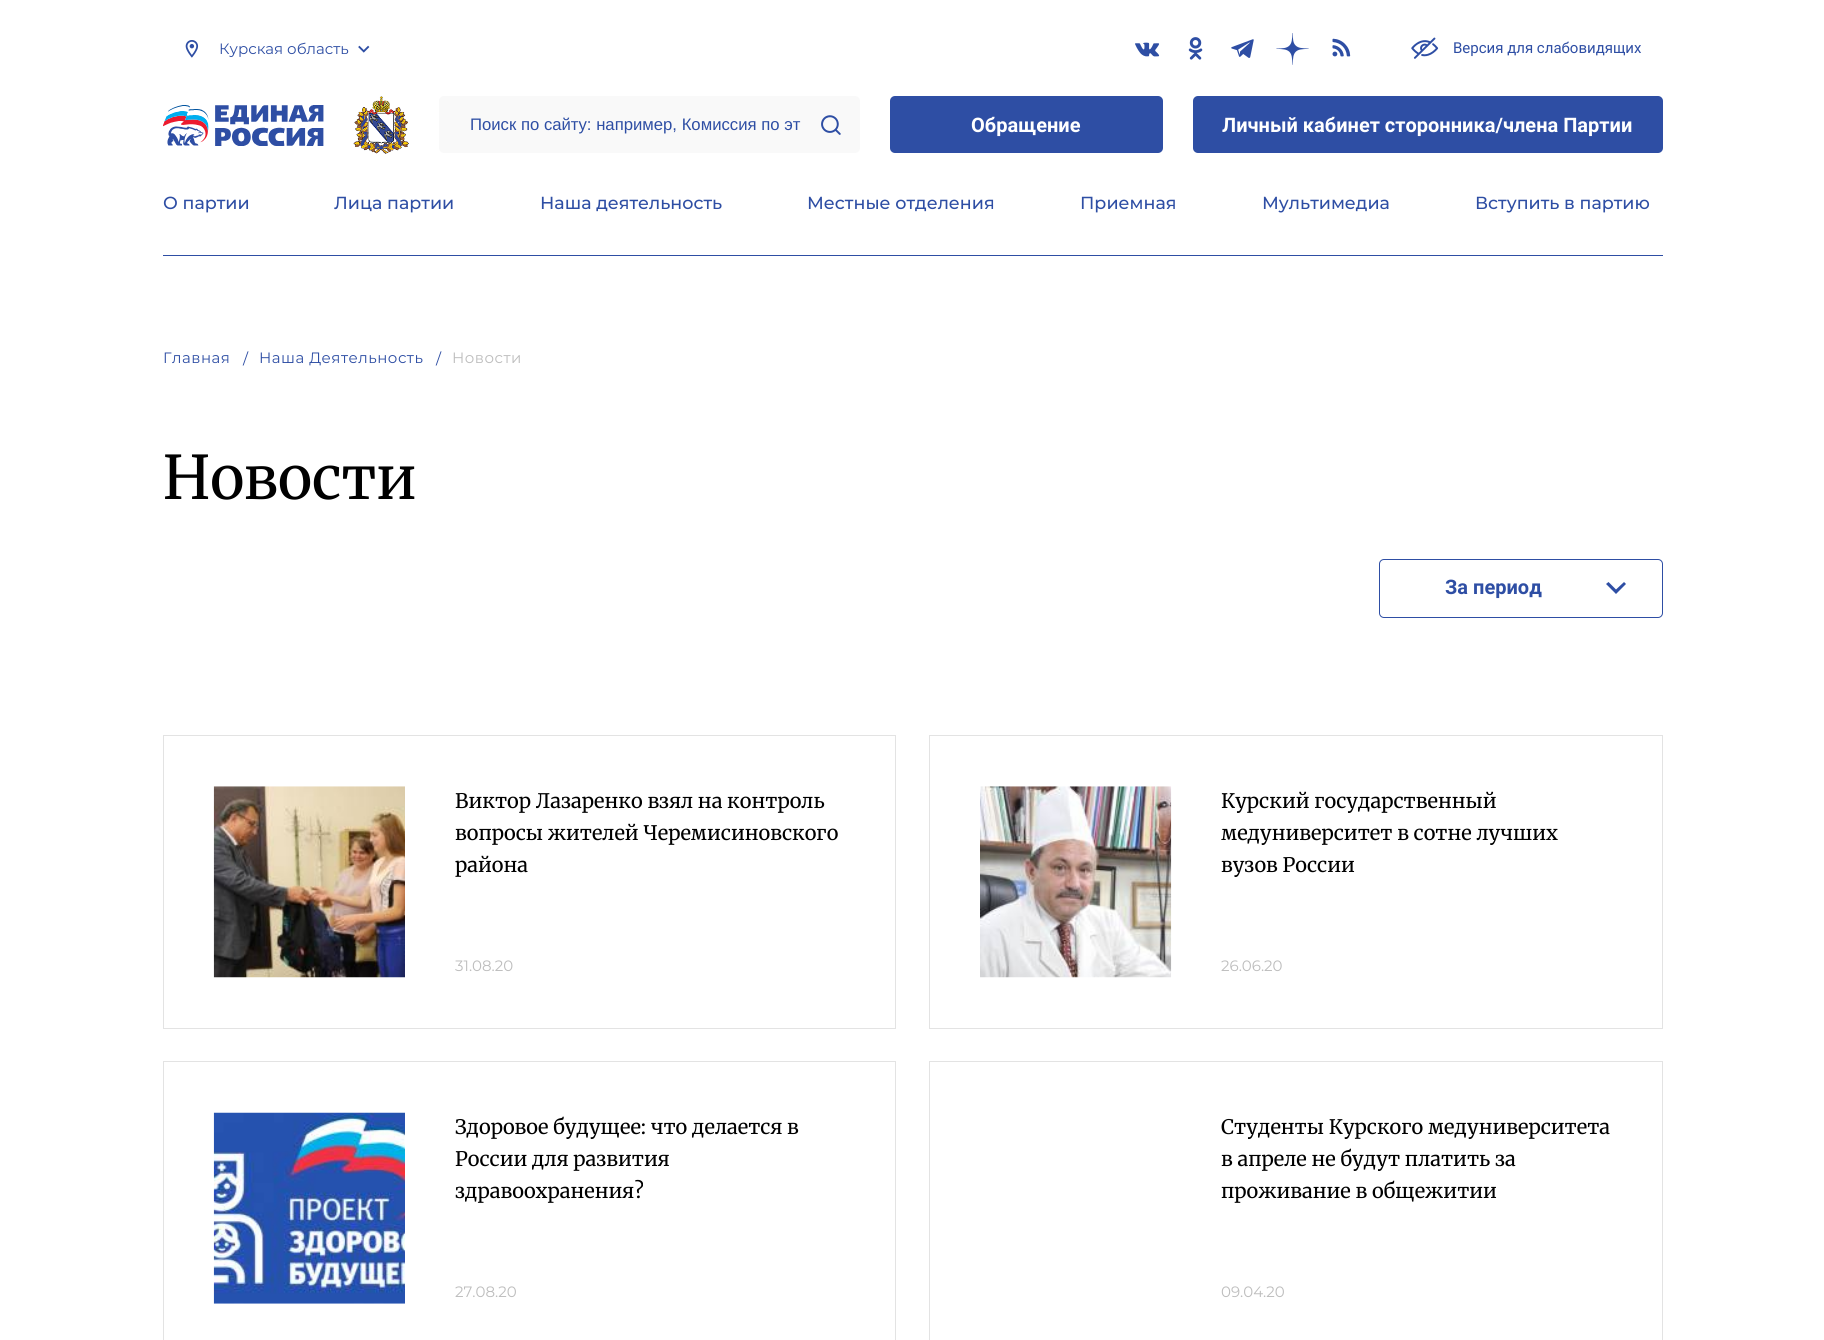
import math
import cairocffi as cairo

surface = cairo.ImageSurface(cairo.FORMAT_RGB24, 1824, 1340)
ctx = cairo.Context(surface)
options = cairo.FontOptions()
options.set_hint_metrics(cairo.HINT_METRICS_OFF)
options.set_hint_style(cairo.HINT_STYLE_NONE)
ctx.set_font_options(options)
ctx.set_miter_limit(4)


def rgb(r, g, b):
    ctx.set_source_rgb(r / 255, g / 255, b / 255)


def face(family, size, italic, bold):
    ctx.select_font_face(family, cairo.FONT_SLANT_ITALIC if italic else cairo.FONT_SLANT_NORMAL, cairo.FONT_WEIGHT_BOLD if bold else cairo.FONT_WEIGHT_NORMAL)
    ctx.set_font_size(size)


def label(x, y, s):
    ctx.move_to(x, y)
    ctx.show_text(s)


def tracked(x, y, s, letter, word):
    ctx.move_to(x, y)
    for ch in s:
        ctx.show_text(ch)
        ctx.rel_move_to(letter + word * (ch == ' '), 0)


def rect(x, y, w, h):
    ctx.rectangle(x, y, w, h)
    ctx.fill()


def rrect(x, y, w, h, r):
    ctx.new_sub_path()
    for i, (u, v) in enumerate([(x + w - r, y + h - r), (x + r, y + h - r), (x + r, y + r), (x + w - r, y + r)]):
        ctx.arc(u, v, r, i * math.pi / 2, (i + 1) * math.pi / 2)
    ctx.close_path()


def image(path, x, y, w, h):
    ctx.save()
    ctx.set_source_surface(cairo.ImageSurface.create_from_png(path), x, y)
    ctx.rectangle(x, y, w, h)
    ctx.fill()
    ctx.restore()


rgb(255, 255, 255)
ctx.paint()
image('image0.png', 185, 40, 14, 18)
face('Montserrat', 15, 0, 0)
rgb(46, 78, 164)
label(219, 54, 'Курская область')
image('image1.png', 358, 45, 12, 8)
image('image2.png', 1135, 42, 25, 15)
image('image3.png', 1188, 37, 15, 23)
image('image4.png', 1231, 39, 23, 19)
image('image5.png', 1276, 33, 33, 32)
image('image6.png', 1332, 38, 19, 19)
image('image7.png', 1411, 37, 28, 22)
face('Roboto', 15, 0, 0)
label(1453, 53, 'Версия для слабовидящих')
image('image8.png', 163, 105, 161, 41)
image('image9.png', 353, 96, 56, 58)
rgb(249, 249, 249)
rrect(439, 96, 421, 57, 5)
ctx.fill()
face('Liberation Sans', 16.7, 0, 0)
rgb(46, 78, 164)
label(470, 130, 'Поиск по сайту: например, Комиссия по эт')
image('image10.png', 821, 115, 20, 20)
rrect(890, 96, 273, 57, 5)
ctx.fill()
face('Roboto', 20, 0, 1)
rgb(255, 255, 255)
label(971, 132, 'Обращение')
rgb(46, 78, 164)
rrect(1193, 96, 470, 57, 5)
ctx.fill()
rgb(255, 255, 255)
label(1222, 132, 'Личный кабинет сторонника/члена Партии')
rgb(46, 78, 164)
rect(163, 255, 1500, 1)
face('Montserrat Medium', 17.5, 0, 0)
label(163, 209, 'О партии')
label(334, 209, 'Лица партии')
label(540, 209, 'Наша деятельность')
label(807, 209, 'Местные отделения')
label(1080, 209, 'Приемная')
label(1262, 209, 'Мультимедиа')
label(1475, 209, 'Вступить в партию')
face('Montserrat', 15, 0, 0)
tracked(163, 363, 'Главная', 0.5, 0)
tracked(243, 364, '/', 0.5, 0)
tracked(259, 363, 'Наша Деятельность', 0.5, 0)
tracked(436, 364, '/', 0.5, 0)
rgb(189, 189, 189)
tracked(452, 363, 'Новости', 0.5, 0)
face('Merriweather', 60, 0, 0)
rgb(0, 0, 0)
label(163, 499, 'Новости')
rrect(1379.5, 559.5, 283, 58, 4.5)
rgb(46, 78, 164)
ctx.set_line_width(1)
ctx.stroke()
face('Roboto', 20, 0, 1)
label(1445, 594, 'За период')
ctx.new_path()
ctx.move_to(1624, 582)
ctx.line_to(1616, 589.5)
ctx.line_to(1608.5, 582)
ctx.line_to(1606, 584)
ctx.line_to(1616, 594)
ctx.line_to(1626, 584)
ctx.close_path()
ctx.fill()
ctx.rectangle(163.5, 735.5, 732, 293)
rgb(227, 227, 227)
ctx.stroke()
image('image11.png', 213, 786, 192, 192)
face('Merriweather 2', 20, 0, 0)
rgb(0, 0, 0)
label(455, 808, 'Виктор Лазаренко взял на контроль')
label(455, 840, 'вопросы жителей Черемисиновского')
label(455, 872, 'района')
face('Montserrat', 15, 0, 0)
rgb(189, 189, 189)
label(455, 971, '31.08.20')
ctx.rectangle(163.5, 1061.5, 732, 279)
rgb(227, 227, 227)
ctx.stroke()
image('image12.png', 213, 1112, 192, 192)
face('Merriweather 2', 20, 0, 0)
rgb(0, 0, 0)
label(455, 1134, 'Здоровое будущее: что делается в')
label(455, 1166, 'России для развития')
label(455, 1198, 'здравоохранения?')
face('Montserrat', 15, 0, 0)
rgb(189, 189, 189)
label(455, 1297, '27.08.20')
ctx.rectangle(929.5, 735.5, 733, 293)
rgb(227, 227, 227)
ctx.stroke()
image('image13.png', 980, 786, 192, 192)
face('Merriweather 2', 20, 0, 0)
rgb(0, 0, 0)
label(1221, 808, 'Курский государственный')
label(1221, 840, 'медуниверситет в сотне лучших')
label(1221, 872, 'вузов России')
face('Montserrat', 15, 0, 0)
rgb(189, 189, 189)
label(1221, 971, '26.06.20')
ctx.rectangle(929.5, 1061.5, 733, 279)
rgb(227, 227, 227)
ctx.stroke()
face('Merriweather 2', 20, 0, 0)
rgb(0, 0, 0)
label(1221, 1134, 'Студенты Курского медуниверситета')
label(1221, 1166, 'в апреле не будут платить за')
label(1221, 1198, 'проживание в общежитии')
face('Montserrat', 15, 0, 0)
rgb(189, 189, 189)
label(1221, 1297, '09.04.20')
surface.write_to_png('render.png')
